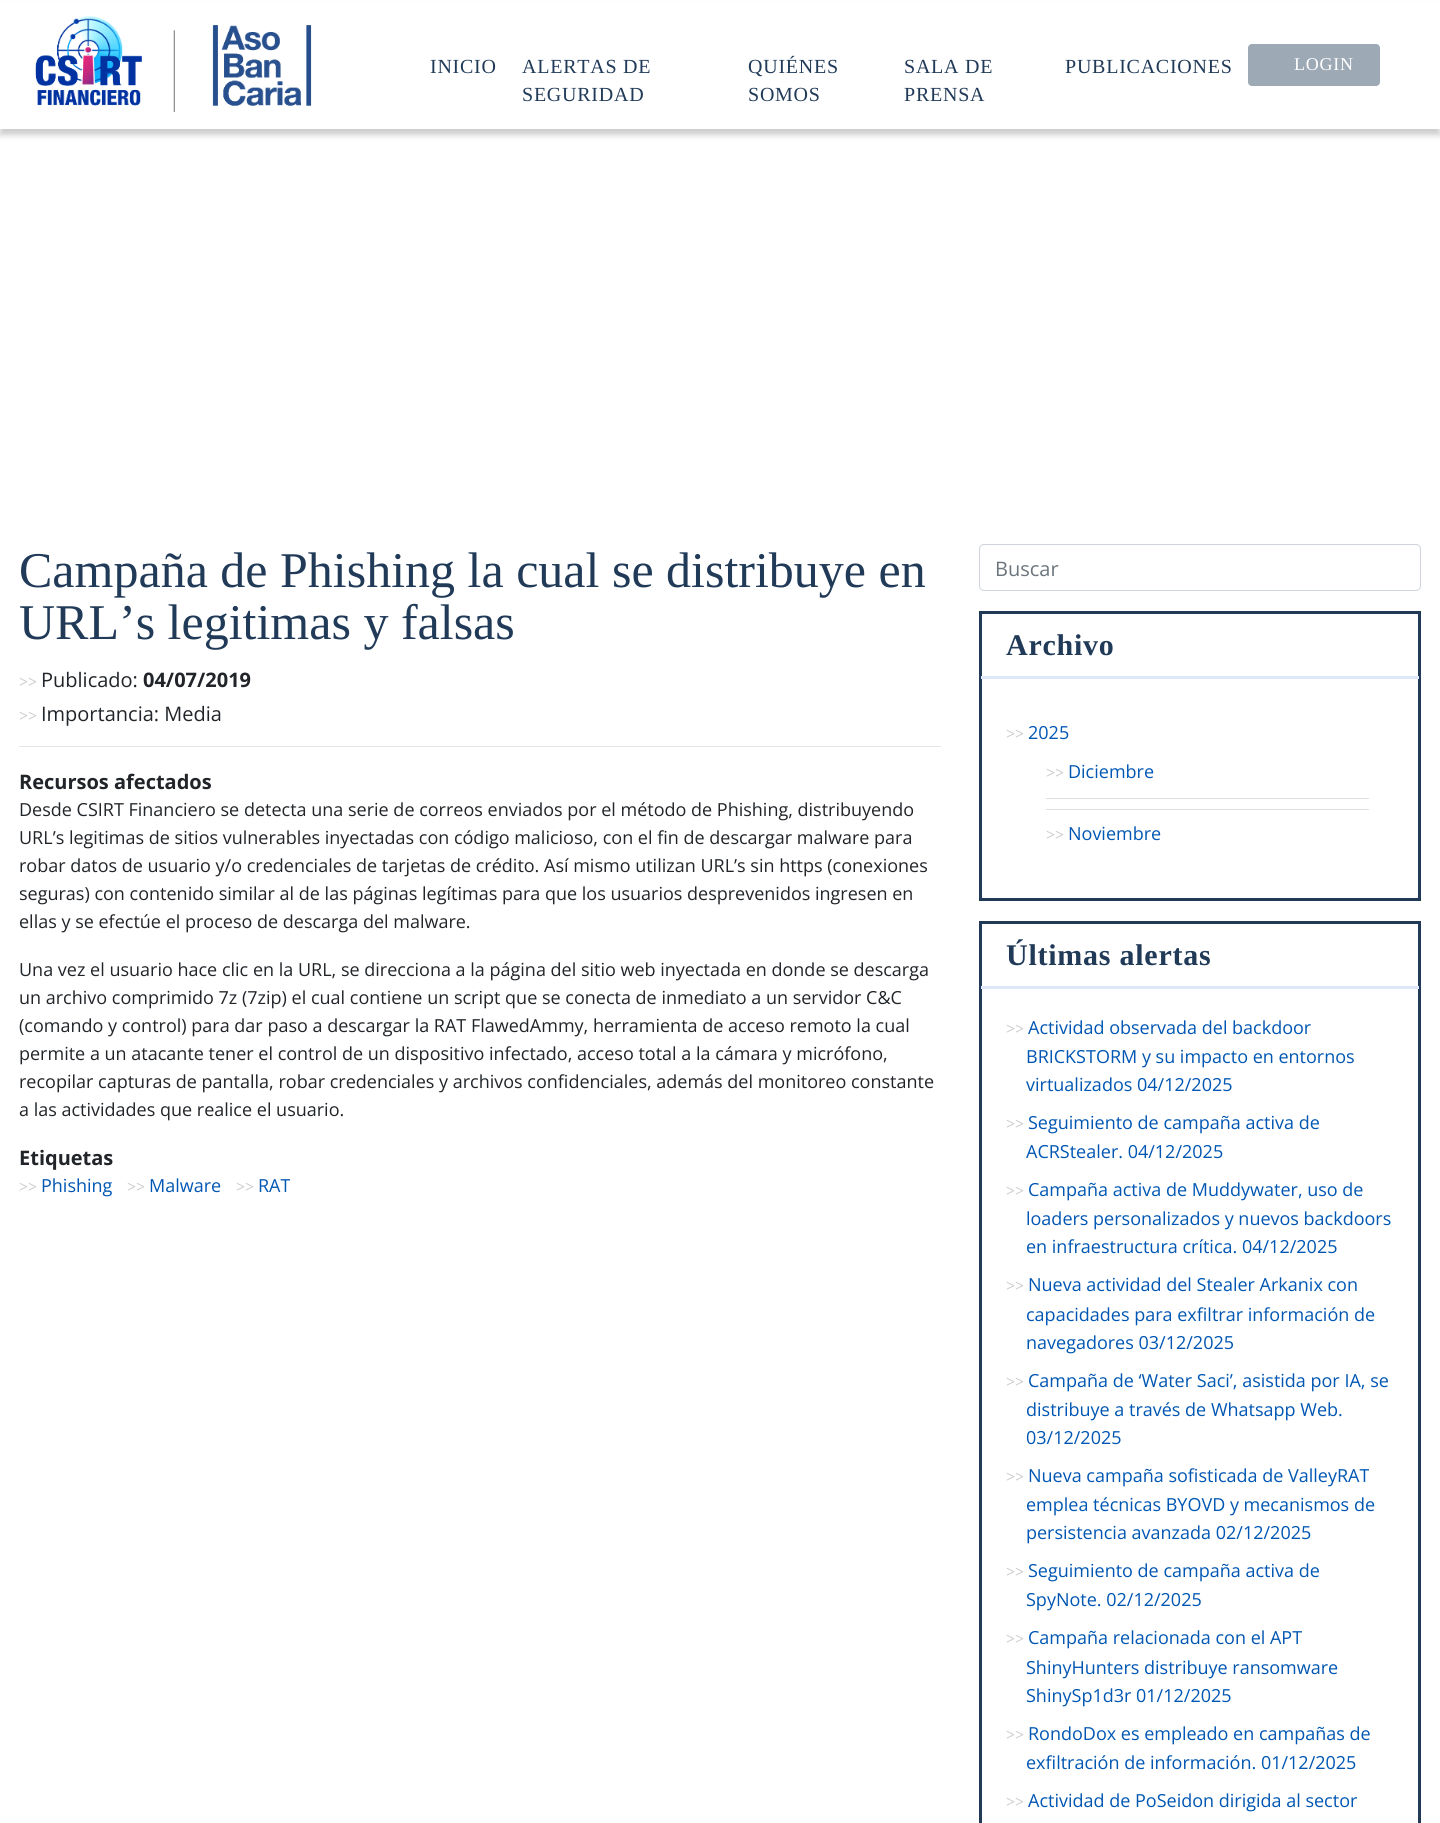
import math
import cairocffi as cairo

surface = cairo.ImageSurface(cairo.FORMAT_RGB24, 1440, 1823)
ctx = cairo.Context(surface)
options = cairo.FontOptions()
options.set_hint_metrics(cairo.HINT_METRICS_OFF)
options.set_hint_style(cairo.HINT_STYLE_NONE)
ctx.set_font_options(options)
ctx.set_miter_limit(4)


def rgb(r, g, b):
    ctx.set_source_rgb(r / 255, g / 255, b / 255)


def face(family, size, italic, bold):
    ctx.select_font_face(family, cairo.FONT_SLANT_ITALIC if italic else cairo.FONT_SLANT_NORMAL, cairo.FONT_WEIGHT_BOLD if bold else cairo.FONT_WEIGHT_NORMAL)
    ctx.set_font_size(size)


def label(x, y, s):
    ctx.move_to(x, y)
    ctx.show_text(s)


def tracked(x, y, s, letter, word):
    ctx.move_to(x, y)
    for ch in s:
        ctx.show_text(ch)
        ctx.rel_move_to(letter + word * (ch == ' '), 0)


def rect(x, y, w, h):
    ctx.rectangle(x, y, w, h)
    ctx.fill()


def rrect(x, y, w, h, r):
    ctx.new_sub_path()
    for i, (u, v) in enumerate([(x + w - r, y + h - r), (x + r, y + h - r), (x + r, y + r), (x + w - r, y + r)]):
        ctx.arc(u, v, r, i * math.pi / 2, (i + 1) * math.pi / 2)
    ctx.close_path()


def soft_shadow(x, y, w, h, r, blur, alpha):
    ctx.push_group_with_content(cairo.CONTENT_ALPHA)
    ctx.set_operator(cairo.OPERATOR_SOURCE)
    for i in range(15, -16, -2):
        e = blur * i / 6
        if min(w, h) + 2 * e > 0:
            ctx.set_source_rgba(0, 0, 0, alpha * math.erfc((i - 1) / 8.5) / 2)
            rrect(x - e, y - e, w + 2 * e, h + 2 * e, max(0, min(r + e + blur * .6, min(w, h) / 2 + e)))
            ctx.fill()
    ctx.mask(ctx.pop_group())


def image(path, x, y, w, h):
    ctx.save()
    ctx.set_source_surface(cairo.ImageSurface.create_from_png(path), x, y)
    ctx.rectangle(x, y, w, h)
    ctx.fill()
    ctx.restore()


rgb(255, 255, 255)
ctx.paint()
rgb(1, 1, 1)
soft_shadow(0, 6, 1440, 129, 0, 3, 0.2)
rgb(255, 255, 255)
rect(0, 1, 1440, 128)
image('image0.png', 35, 16, 277, 96)
face('Liberation Serif', 20, 0, 0)
rgb(32, 58, 88)
tracked(430, 73, 'INICIO', 0.75, 0)
tracked(522, 73, 'ALERTAS DE', 0.75, 0)
tracked(522, 101, 'SEGURIDAD', 0.75, 0)
tracked(748, 73, 'QUIÉNES', 0.75, 0)
tracked(748, 101, 'SOMOS', 0.75, 0)
tracked(904, 73, 'SALA DE', 0.75, 0)
tracked(904, 101, 'PRENSA', 0.75, 0)
tracked(1065, 73, 'PUBLICACIONES', 0.75, 0)
rgb(158, 169, 182)
rrect(1248, 44, 132, 42, 4)
ctx.fill()
face('Liberation Serif', 18, 0, 0)
rgb(255, 255, 255)
tracked(1294, 70, 'LOGIN', 0.75, 0)
face('Liberation Serif', 50, 0, 0)
rgb(32, 58, 88)
label(19, 587, 'Campaña de Phishing la cual se distribuye en')
label(19, 639, 'URL’s legitimas y falsas')
face('Liberation Serif', 16, 0, 1)
rgb(204, 204, 204)
label(19, 687, '>>')
face('Open Sans', 20, 0, 0)
rgb(33, 37, 41)
label(41, 687, 'Publicado:')
face('Open Sans', 20, 0, 1)
label(143, 687, '04/07/2019')
face('Liberation Serif', 16, 0, 1)
rgb(204, 204, 204)
label(19, 721, '>>')
face('Open Sans', 20, 0, 0)
rgb(33, 37, 41)
label(41, 721, 'Importancia: Media')
rgb(230, 230, 230)
rect(19, 746, 922, 1)
face('Open Sans', 20, 0, 1)
rgb(33, 37, 41)
label(19, 789, 'Recursos afectados')
face('Open Sans', 18, 0, 0)
label(19, 816, 'Desde CSIRT Financiero se detecta una serie de correos enviados por el método de Phishing, distribuyendo')
label(19, 844, 'URL’s legitimas de sitios vulnerables inyectadas con código malicioso, con el fin de descargar malware para')
label(19, 872, 'robar datos de usuario y/o credenciales de tarjetas de crédito. Así mismo utilizan URL’s sin https (conexiones')
label(19, 900, 'seguras) con contenido similar al de las páginas legítimas para que los usuarios desprevenidos ingresen en')
label(19, 928, 'ellas y se efectúe el proceso de descarga del malware.')
label(19, 976, 'Una vez el usuario hace clic en la URL, se direcciona a la página del sitio web inyectada en donde se descarga')
label(19, 1004, 'un archivo comprimido 7z (7zip) el cual contiene un script que se conecta de inmediato a un servidor C&C')
label(19, 1032, '(comando y control) para dar paso a descargar la RAT FlawedAmmy, herramienta de acceso remoto la cual')
label(19, 1060, 'permite a un atacante tener el control de un dispositivo infectado, acceso total a la cámara y micrófono,')
label(19, 1088, 'recopilar capturas de pantalla, robar credenciales y archivos confidenciales, además del monitoreo constante')
label(19, 1116, 'a las actividades que realice el usuario.')
face('Open Sans', 20, 0, 1)
label(19, 1165, 'Etiquetas')
face('Liberation Serif', 16, 0, 1)
rgb(204, 204, 204)
label(19, 1192, '>>')
face('Open Sans', 18, 0, 0)
rgb(0, 86, 179)
label(41, 1192, 'Phishing')
face('Liberation Serif', 16, 0, 1)
rgb(204, 204, 204)
label(127, 1192, '>>')
face('Open Sans', 18, 0, 0)
rgb(0, 86, 179)
label(149, 1192, 'Malware')
face('Liberation Serif', 16, 0, 1)
rgb(204, 204, 204)
label(236, 1192, '>>')
face('Open Sans', 18, 0, 0)
rgb(0, 86, 179)
label(258, 1192, 'RAT')
rrect(979.5, 544.5, 441, 46, 4.5)
rgb(206, 212, 218)
ctx.set_line_width(1)
ctx.stroke()
face('Open Sans', 20, 0, 0)
rgb(108, 117, 125)
label(995, 576, 'Buscar')
ctx.rectangle(980.5, 612.5, 439, 287)
rgb(32, 58, 88)
ctx.set_line_width(3)
ctx.stroke()
face('Liberation Serif', 30, 0, 1)
tracked(1006, 655, 'Archivo', 0.75, 0)
rgb(223, 232, 250)
rect(981, 676, 438, 3)
face('Liberation Serif', 16, 0, 1)
rgb(204, 204, 204)
label(1006, 739, '>>')
face('Open Sans', 18, 0, 0)
rgb(0, 86, 179)
label(1028, 739, '2025')
rgb(223, 223, 223)
rect(1046, 798, 323, 1)
face('Liberation Serif', 16, 0, 1)
rgb(204, 204, 204)
label(1046, 778, '>>')
face('Open Sans', 18, 0, 0)
rgb(0, 86, 179)
label(1068, 778, 'Diciembre')
rgb(223, 223, 223)
rect(1046, 809, 323, 1)
face('Liberation Serif', 16, 0, 1)
rgb(204, 204, 204)
label(1046, 840, '>>')
face('Open Sans', 18, 0, 0)
rgb(0, 86, 179)
label(1068, 840, 'Noviembre')
ctx.rectangle(980.5, 922.5, 439, 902)
rgb(32, 58, 88)
ctx.stroke()
face('Liberation Serif', 30, 0, 1)
tracked(1006, 965, 'Últimas alertas', 0.75, 0)
rgb(223, 232, 250)
rect(981, 986, 438, 3)
face('Liberation Serif', 16, 0, 1)
rgb(204, 204, 204)
label(1006, 1034, '>>')
face('Open Sans', 18, 0, 0)
rgb(0, 86, 179)
label(1028, 1034, 'Actividad observada del backdoor')
label(1026, 1063, 'BRICKSTORM y su impacto en entornos')
label(1026, 1091, 'virtualizados 04/12/2025')
face('Liberation Serif', 16, 0, 1)
rgb(204, 204, 204)
label(1006, 1129, '>>')
face('Open Sans', 18, 0, 0)
rgb(0, 86, 179)
label(1028, 1129, 'Seguimiento de campaña activa de')
label(1026, 1158, 'ACRStealer. 04/12/2025')
face('Liberation Serif', 16, 0, 1)
rgb(204, 204, 204)
label(1006, 1196, '>>')
face('Open Sans', 18, 0, 0)
rgb(0, 86, 179)
label(1028, 1196, 'Campaña activa de Muddywater, uso de')
label(1026, 1225, 'loaders personalizados y nuevos backdoors')
label(1026, 1253, 'en infraestructura crítica. 04/12/2025')
face('Liberation Serif', 16, 0, 1)
rgb(204, 204, 204)
label(1006, 1291, '>>')
face('Open Sans', 18, 0, 0)
rgb(0, 86, 179)
label(1028, 1291, 'Nueva actividad del Stealer Arkanix con')
label(1026, 1321, 'capacidades para exfiltrar información de')
label(1026, 1349, 'navegadores 03/12/2025')
face('Liberation Serif', 16, 0, 1)
rgb(204, 204, 204)
label(1006, 1387, '>>')
face('Open Sans', 18, 0, 0)
rgb(0, 86, 179)
label(1028, 1387, 'Campaña de ‘Water Saci’, asistida por IA, se')
label(1026, 1416, 'distribuye a través de Whatsapp Web.')
label(1026, 1444, '03/12/2025')
face('Liberation Serif', 16, 0, 1)
rgb(204, 204, 204)
label(1006, 1482, '>>')
face('Open Sans', 18, 0, 0)
rgb(0, 86, 179)
label(1028, 1482, 'Nueva campaña sofisticada de ValleyRAT')
label(1026, 1511, 'emplea técnicas BYOVD y mecanismos de')
label(1026, 1539, 'persistencia avanzada 02/12/2025')
face('Liberation Serif', 16, 0, 1)
rgb(204, 204, 204)
label(1006, 1577, '>>')
face('Open Sans', 18, 0, 0)
rgb(0, 86, 179)
label(1028, 1577, 'Seguimiento de campaña activa de')
label(1026, 1606, 'SpyNote. 02/12/2025')
face('Liberation Serif', 16, 0, 1)
rgb(204, 204, 204)
label(1006, 1644, '>>')
face('Open Sans', 18, 0, 0)
rgb(0, 86, 179)
label(1028, 1644, 'Campaña relacionada con el APT')
label(1026, 1674, 'ShinyHunters distribuye ransomware')
label(1026, 1702, 'ShinySp1d3r 01/12/2025')
face('Liberation Serif', 16, 0, 1)
rgb(204, 204, 204)
label(1006, 1740, '>>')
face('Open Sans', 18, 0, 0)
rgb(0, 86, 179)
label(1028, 1740, 'RondoDox es empleado en campañas de')
label(1026, 1769, 'exfiltración de información. 01/12/2025')
face('Liberation Serif', 16, 0, 1)
rgb(204, 204, 204)
label(1006, 1807, '>>')
face('Open Sans', 18, 0, 0)
rgb(0, 86, 179)
label(1028, 1807, 'Actividad de PoSeidon dirigida al sector')
surface.write_to_png('render.png')
